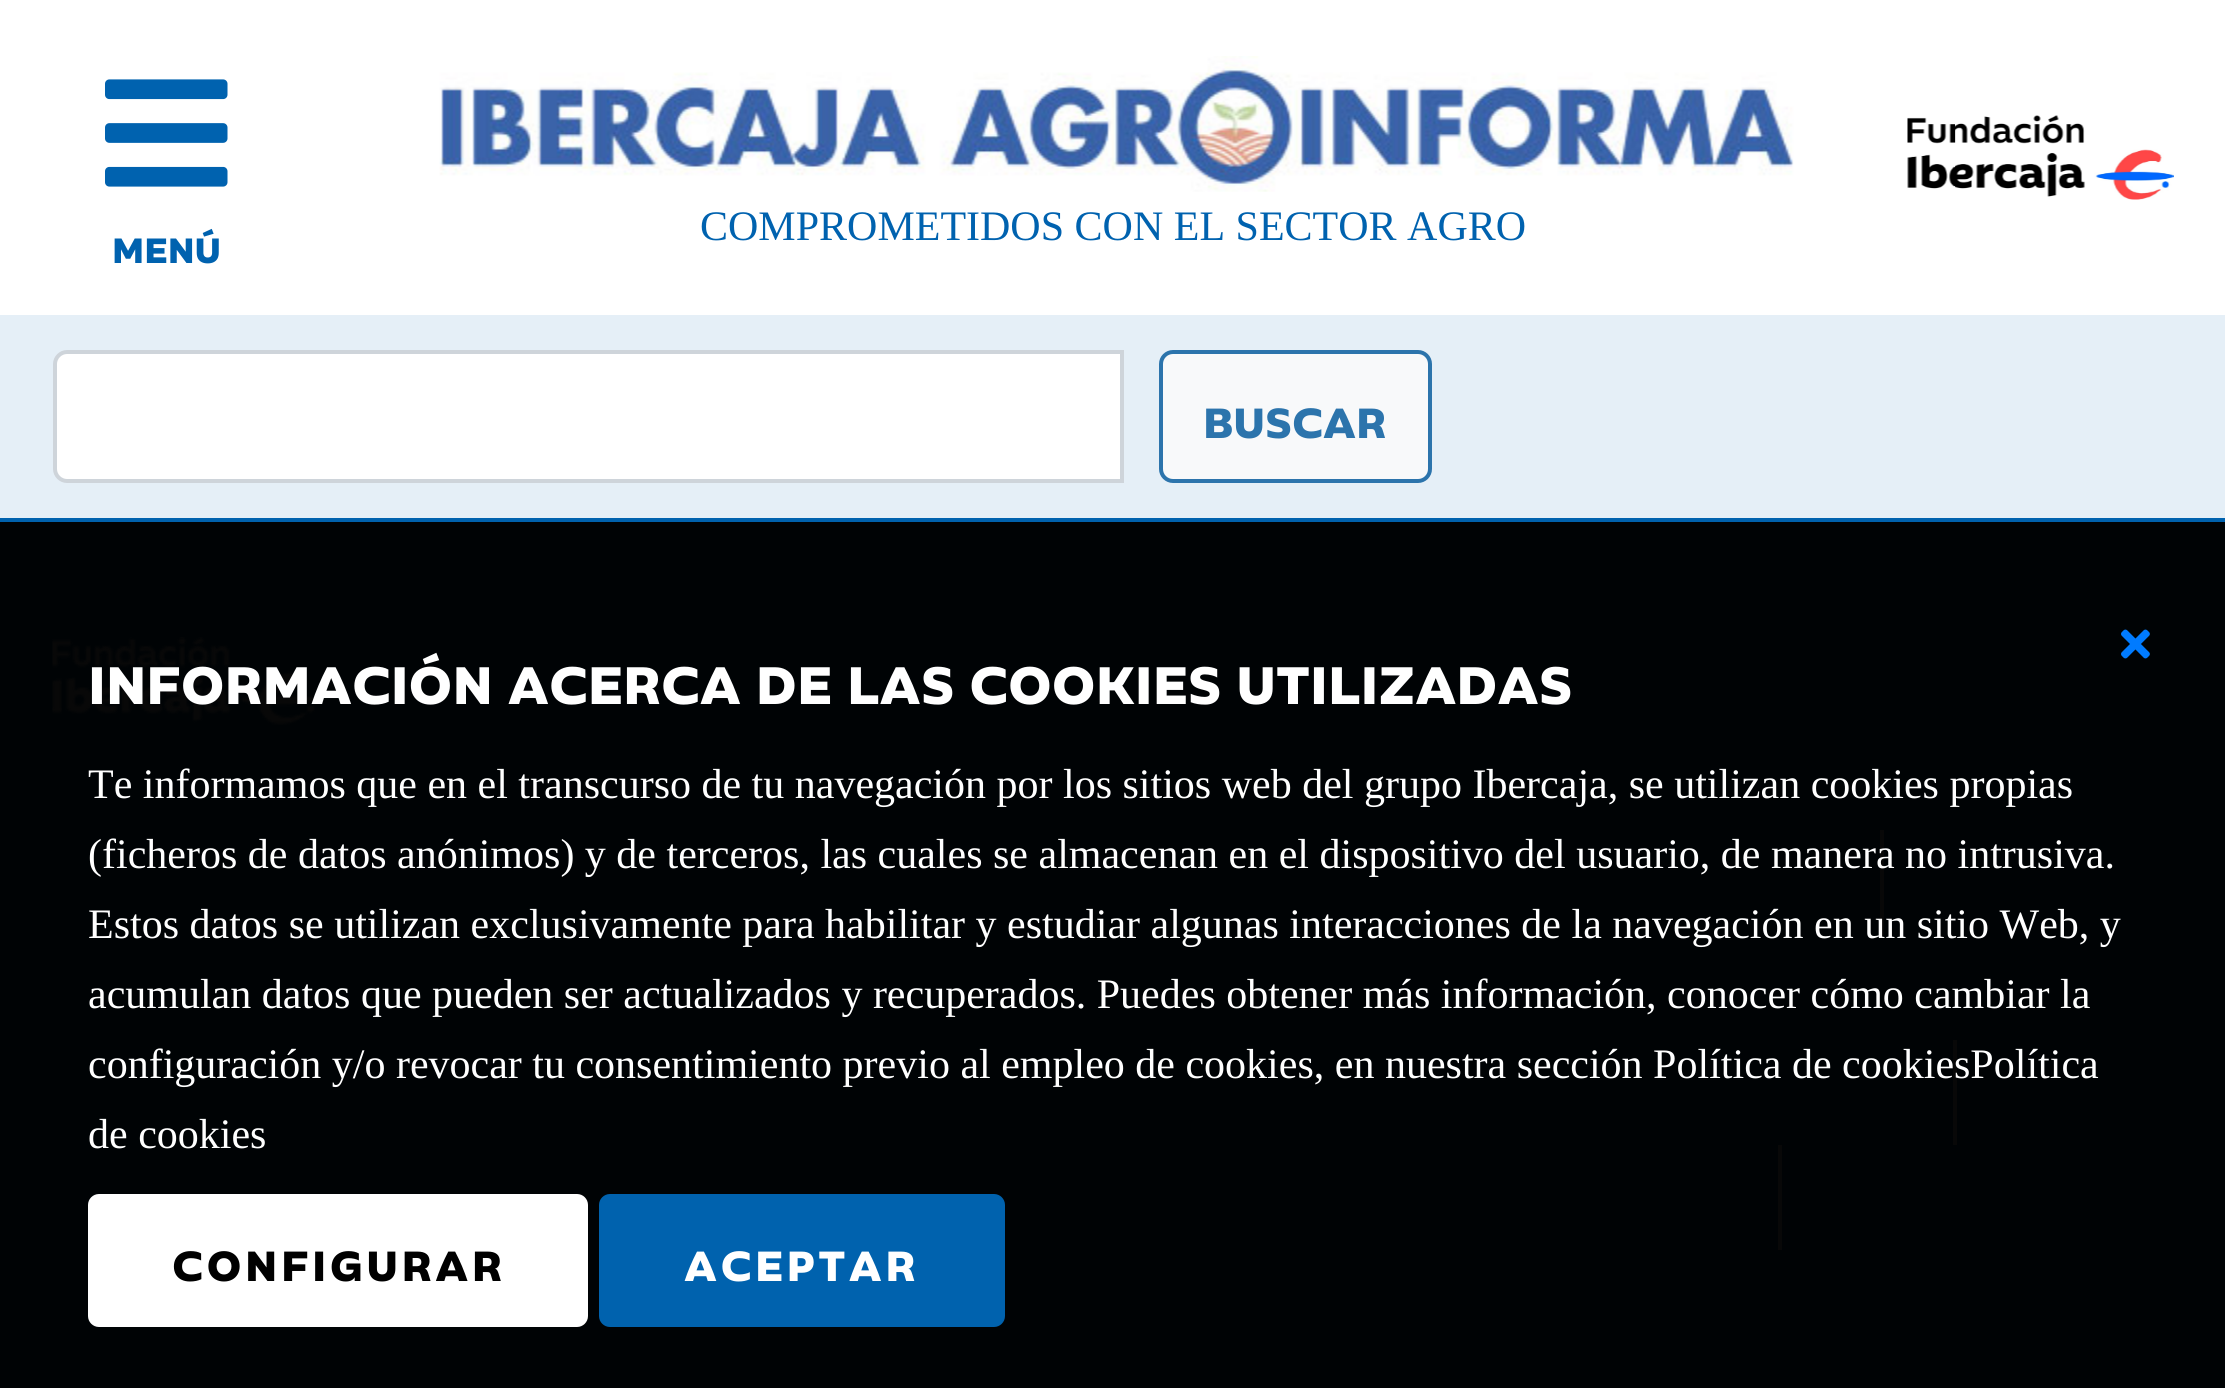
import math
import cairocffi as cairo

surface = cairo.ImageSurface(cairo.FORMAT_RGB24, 2225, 1388)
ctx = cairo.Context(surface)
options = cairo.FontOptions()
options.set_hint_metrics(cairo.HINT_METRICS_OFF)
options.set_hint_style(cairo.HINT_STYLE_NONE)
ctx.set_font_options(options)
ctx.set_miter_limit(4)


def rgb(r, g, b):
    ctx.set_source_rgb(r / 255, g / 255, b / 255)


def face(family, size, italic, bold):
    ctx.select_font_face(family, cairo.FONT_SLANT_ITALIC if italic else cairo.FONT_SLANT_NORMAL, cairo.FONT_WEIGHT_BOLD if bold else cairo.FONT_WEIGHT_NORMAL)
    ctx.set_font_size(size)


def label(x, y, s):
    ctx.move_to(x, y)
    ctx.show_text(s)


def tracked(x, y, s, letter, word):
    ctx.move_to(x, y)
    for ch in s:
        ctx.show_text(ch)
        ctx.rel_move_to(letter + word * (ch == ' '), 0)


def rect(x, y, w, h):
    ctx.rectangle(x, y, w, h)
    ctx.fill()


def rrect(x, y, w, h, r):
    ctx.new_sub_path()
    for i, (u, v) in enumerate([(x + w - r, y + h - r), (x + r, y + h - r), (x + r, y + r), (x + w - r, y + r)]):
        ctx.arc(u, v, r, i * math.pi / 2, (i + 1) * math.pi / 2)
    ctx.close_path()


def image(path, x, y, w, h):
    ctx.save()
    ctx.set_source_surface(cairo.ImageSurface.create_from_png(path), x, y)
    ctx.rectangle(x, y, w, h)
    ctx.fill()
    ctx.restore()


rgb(0, 98, 174)
ctx.paint()
rgb(255, 255, 255)
rect(0, 0, 2225, 315)
image('image0.png', 1907, 115, 267, 85)
image('image1.png', 105, 79, 123, 108)
face('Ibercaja', 35, 0, 1)
rgb(0, 98, 175)
label(112, 263, 'MENÚ')
image('image2.png', 439, 56, 1355, 136)
face('Liberation Serif', 42, 0, 0)
label(700, 240, 'COMPROMETIDOS CON EL SECTOR AGRO')
rgb(229, 239, 247)
rect(0, 315, 2225, 203)
rgb(255, 255, 255)
ctx.new_path()
ctx.move_to(67, 352)
ctx.line_to(1122, 352)
ctx.line_to(1122, 481)
ctx.line_to(67, 481)
ctx.curve_to(60.5, 481, 55, 475.5, 55, 469)
ctx.line_to(55, 364)
ctx.curve_to(55, 357.5, 60.5, 352, 67, 352)
ctx.close_path()
ctx.fill_preserve()
rgb(206, 212, 218)
ctx.set_line_width(4)
ctx.stroke()
rgb(248, 249, 250)
rrect(1161, 352, 269, 129, 12)
ctx.fill_preserve()
rgb(44, 116, 172)
ctx.stroke()
face('Ibercaja', 42, 0, 1)
label(1203, 438, 'BUSCAR')
rgb(0, 3, 5)
rect(0, 522, 2225, 866)
image('image3.png', 2121, 629, 29, 30)
image('image4.png', 52, 637, 267, 88)
face('Ibercaja', 52.5, 0, 1)
rgb(255, 255, 255)
label(88, 704, 'INFORMACIÓN ACERCA DE LAS COOKIES UTILIZADAS')
face('Liberation Serif', 42, 0, 0)
label(88, 798, 'Te informamos que en el transcurso de tu navegación por los sitios web del grupo Ibercaja, se utilizan cookies propias')
rgb(8, 8, 8)
rect(1880, 830, 4, 105)
rgb(255, 255, 255)
label(88, 868, '(ficheros de datos anónimos) y de terceros, las cuales se almacenan en el dispositivo del usuario, de manera no intrusiva.')
label(88, 938, 'Estos datos se utilizan exclusivamente para habilitar y estudiar algunas interacciones de la navegación en un sitio Web, y')
label(88, 1008, 'acumulan datos que pueden ser actualizados y recuperados. Puedes obtener más información, conocer cómo cambiar la')
rgb(8, 8, 8)
rect(1953, 1040, 4, 105)
rgb(255, 255, 255)
label(88, 1078, 'configuración y/o revocar tu consentimiento previo al empleo de cookies, en nuestra sección Política de cookiesPolítica')
label(88, 1148, 'de cookies')
rrect(88, 1194, 500, 133, 11)
ctx.fill()
face('Ibercaja', 42, 0, 1)
rgb(0, 0, 0)
tracked(172, 1281, 'CONFIGURAR', 3.5, 0)
rgb(0, 98, 174)
rrect(599, 1194, 406, 133, 11)
ctx.fill()
rgb(255, 255, 255)
tracked(684, 1281, 'ACEPTAR', 3.5, 0)
rgb(8, 8, 8)
rect(1778, 1145, 4, 105)
surface.write_to_png('render.png')
